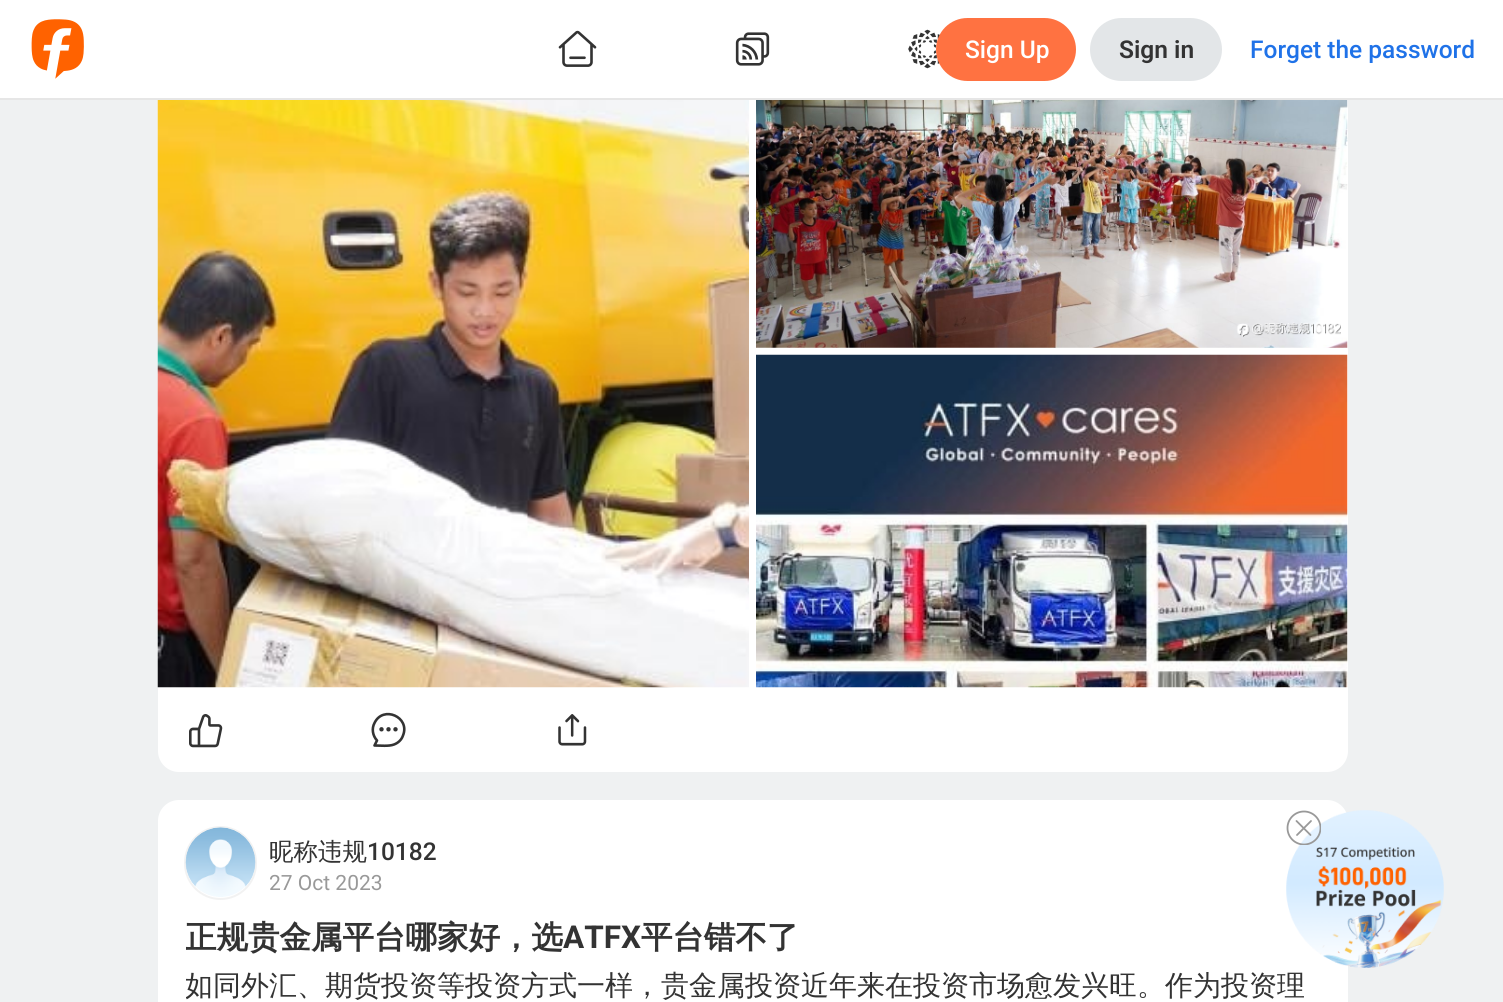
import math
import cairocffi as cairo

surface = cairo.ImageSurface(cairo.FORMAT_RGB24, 1503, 1002)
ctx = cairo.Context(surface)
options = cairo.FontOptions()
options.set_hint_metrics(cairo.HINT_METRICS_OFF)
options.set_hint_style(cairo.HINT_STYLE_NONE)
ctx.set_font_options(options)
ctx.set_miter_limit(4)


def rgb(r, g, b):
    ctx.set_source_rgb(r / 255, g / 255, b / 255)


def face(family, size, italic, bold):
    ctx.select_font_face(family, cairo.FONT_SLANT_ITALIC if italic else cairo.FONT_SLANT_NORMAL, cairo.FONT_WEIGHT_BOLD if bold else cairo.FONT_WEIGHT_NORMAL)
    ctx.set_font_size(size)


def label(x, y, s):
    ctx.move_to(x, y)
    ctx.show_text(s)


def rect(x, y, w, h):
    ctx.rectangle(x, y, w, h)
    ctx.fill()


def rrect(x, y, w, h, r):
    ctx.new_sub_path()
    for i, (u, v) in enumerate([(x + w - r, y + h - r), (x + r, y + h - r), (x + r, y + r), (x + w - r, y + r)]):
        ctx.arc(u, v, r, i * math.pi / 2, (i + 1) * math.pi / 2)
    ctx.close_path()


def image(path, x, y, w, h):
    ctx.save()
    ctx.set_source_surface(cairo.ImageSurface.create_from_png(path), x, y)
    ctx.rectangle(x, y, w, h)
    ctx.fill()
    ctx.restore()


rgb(239, 241, 242)
ctx.paint()
rgb(255, 255, 255)
rrect(158, -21, 1190, 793, 21)
ctx.fill()
rect(0, 0, 1503, 98)
rgb(230, 230, 230)
rect(0, 98, 1503, 2)
image('image0.png', 31, 19, 53, 60)
image('image1.png', 558, 30, 39, 37)
image('image2.png', 735, 32, 35, 34)
image('image3.png', 908, 29, 32, 40)
rgb(255, 114, 65)
rrect(936, 18, 140, 63, 31.5)
ctx.fill()
face('Roboto Medium', 24.5, 0, 0)
rgb(255, 255, 255)
label(965, 58, 'Sign Up')
rgb(227, 230, 232)
rrect(1090, 18, 132, 63, 31.5)
ctx.fill()
face('Roboto SemiBold', 24.5, 0, 0)
rgb(51, 51, 51)
label(1119, 58, 'Sign in')
face('Roboto Medium', 24.5, 0, 0)
rgb(31, 114, 232)
label(1250, 58, 'Forget the password')
image('image4.png', 157, 100, 592, 588)
image('image5.png', 756, 100, 592, 248)
image('image6.png', 756, 354, 592, 334)
image('image7.png', 189, 714, 34, 34)
ctx.new_path()
ctx.move_to(374.5, 745.5)
ctx.line_to(377, 740.5)
ctx.curve_to(372.5, 735.5, 371.5, 728.5, 374.5, 723)
ctx.curve_to(383, 705, 410.5, 717, 403, 735.5)
ctx.curve_to(401.5, 740, 398, 743, 394, 744.5)
ctx.curve_to(389, 746.5, 380, 745.5, 374.5, 745.5)
ctx.close_path()
rgb(51, 51, 51)
ctx.set_line_width(2.6)
ctx.set_line_join(cairo.LINE_JOIN_ROUND)
ctx.stroke()
ctx.arc(381.5, 729.3, 2.2, 0, 2 * math.pi)
ctx.fill()
ctx.arc(388.5, 729.3, 2.2, 0, 2 * math.pi)
ctx.fill()
ctx.arc(395.5, 729.3, 2.2, 0, 2 * math.pi)
ctx.fill()
image('image8.png', 558, 714, 29, 32)
rgb(255, 255, 255)
rrect(158, 800, 1190, 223, 21)
ctx.fill()
rrect(185, 827, 71, 72, 35.5)
rgb(242, 242, 242)
ctx.set_line_width(2)
ctx.set_line_join(cairo.LINE_JOIN_MITER)
ctx.stroke()
image('image9.png', 185, 827, 71, 70)
face('WenQuanYi Zen Hei Medium', 24.5, 0, 0)
rgb(51, 51, 51)
label(269, 860, '昵称违规')
face('Roboto Medium', 24.5, 0, 0)
label(367, 860, '10182')
face('Roboto', 21, 0, 0)
rgb(153, 153, 153)
label(269, 890, '27 Oct 2023')
ctx.save()
ctx.rectangle(186, 917, 1134, 42)
ctx.clip()
face('WenQuanYi Zen Hei', 31.5, 0, 1)
rgb(51, 51, 51)
label(185, 948, '正规贵金属平台哪家好，选')
ctx.restore()
face('Roboto', 31.5, 0, 1)
rgb(51, 51, 51)
label(563, 948, 'ATFX')
face('WenQuanYi Zen Hei', 31.5, 0, 1)
label(641, 948, '平台错不了')
ctx.save()
ctx.rectangle(186, 968, 1134, 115)
ctx.clip()
face('WenQuanYi Zen Hei Medium', 28, 0, 0)
label(185, 995, '如同外汇、期货投资等投资方式一样，贵金属投资近年来在投资市场愈发兴旺。作为投资理')
ctx.restore()
image('image10.png', 1286, 810, 158, 158)
ctx.set_source_rgba(1, 1, 1, 0.2)
ctx.arc(1304, 828, 16.5, 0, 2 * math.pi)
ctx.fill()
ctx.save()
ctx.rectangle(1286, 810, 35, 35)
ctx.clip()
ctx.arc(1304, 828, 16.5, 0, 2 * math.pi)
rgb(153, 153, 153)
ctx.set_line_width(1.8)
ctx.stroke()
ctx.restore()
ctx.new_path()
ctx.move_to(1296.5, 821)
ctx.line_to(1310.5, 835)
ctx.move_to(1311, 821)
ctx.line_to(1297, 835)
rgb(153, 153, 153)
ctx.set_line_width(1.8)
ctx.set_line_cap(cairo.LINE_CAP_ROUND)
ctx.set_line_join(cairo.LINE_JOIN_ROUND)
ctx.stroke()
surface.write_to_png('render.png')
